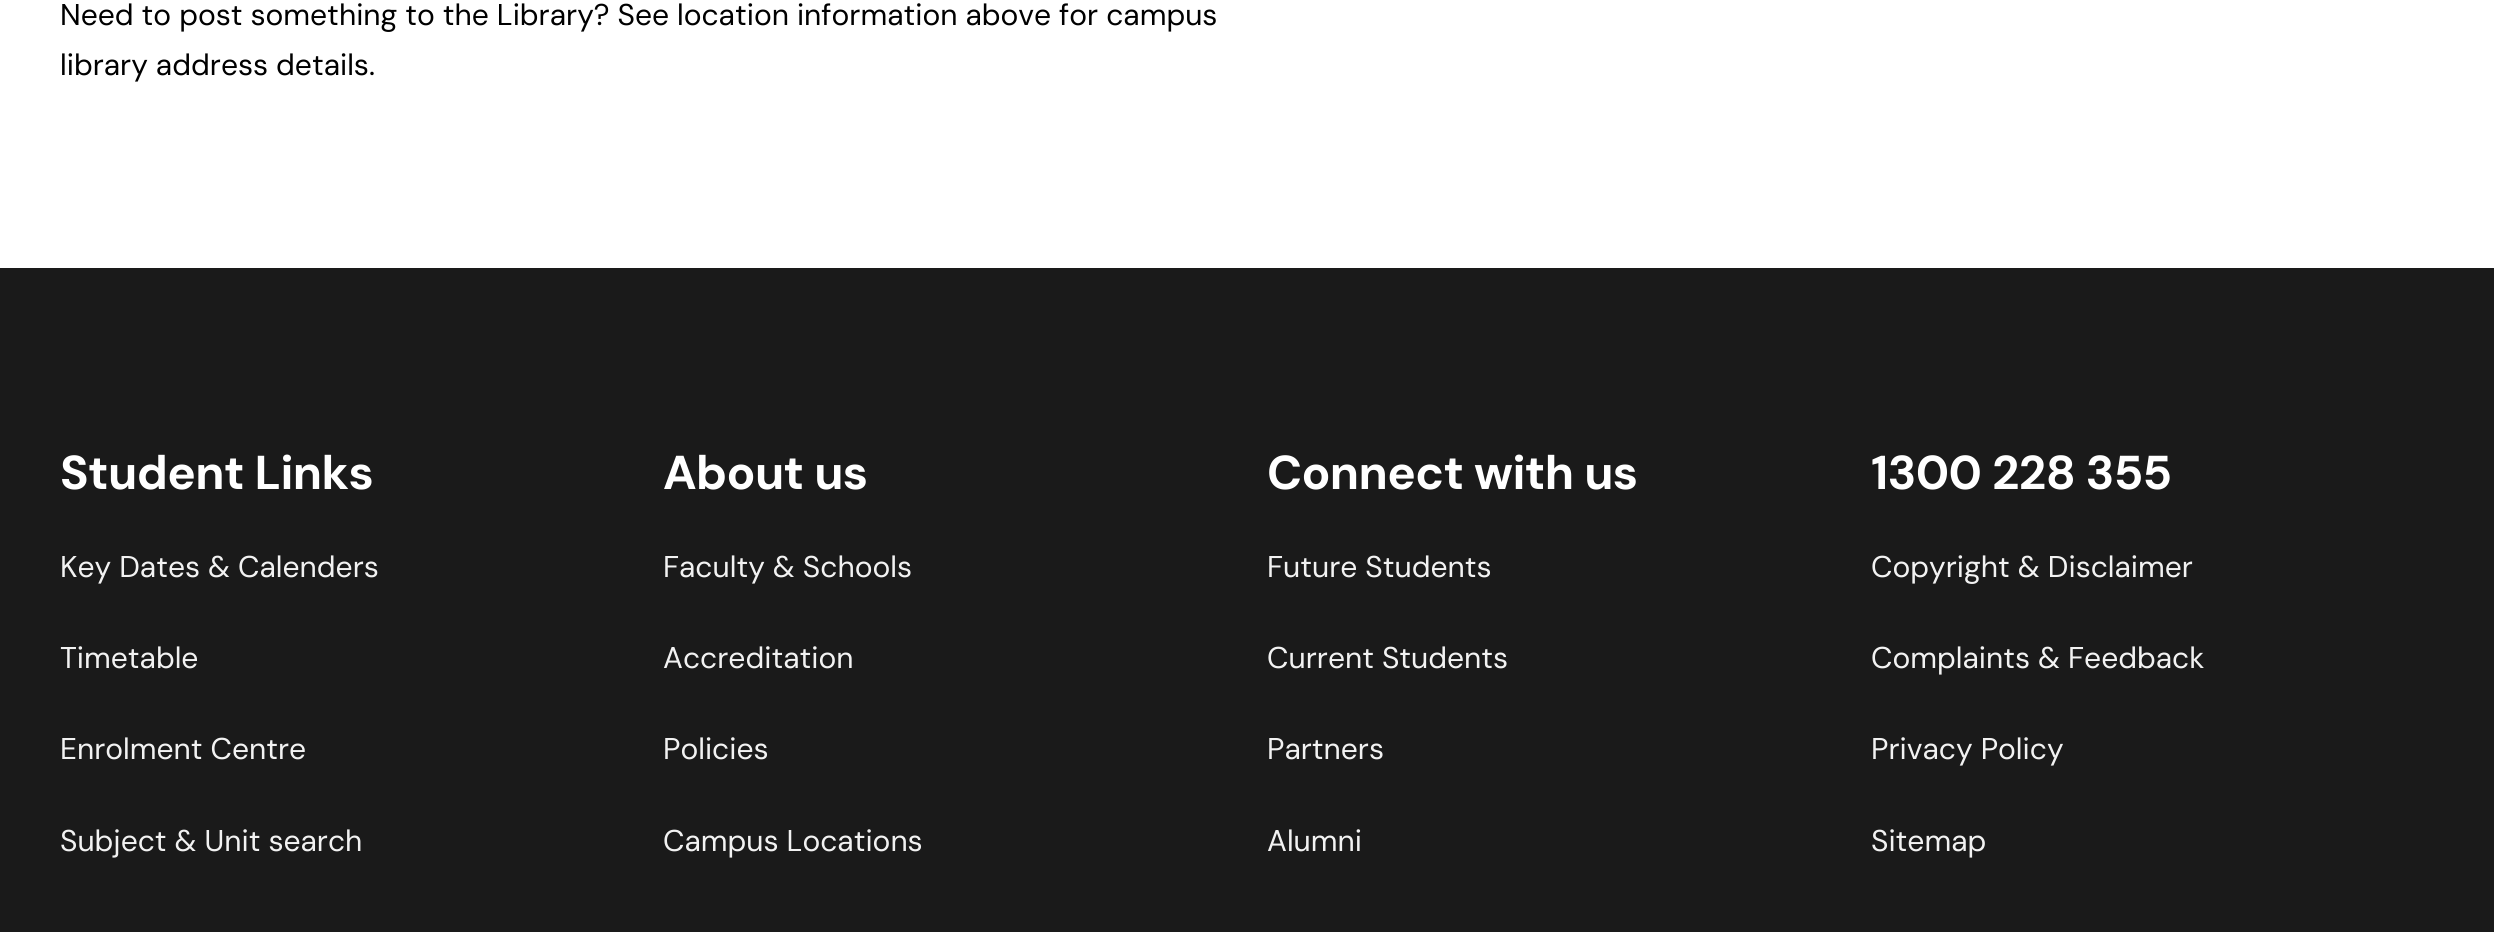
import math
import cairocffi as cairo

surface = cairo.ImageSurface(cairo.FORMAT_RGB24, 2494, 932)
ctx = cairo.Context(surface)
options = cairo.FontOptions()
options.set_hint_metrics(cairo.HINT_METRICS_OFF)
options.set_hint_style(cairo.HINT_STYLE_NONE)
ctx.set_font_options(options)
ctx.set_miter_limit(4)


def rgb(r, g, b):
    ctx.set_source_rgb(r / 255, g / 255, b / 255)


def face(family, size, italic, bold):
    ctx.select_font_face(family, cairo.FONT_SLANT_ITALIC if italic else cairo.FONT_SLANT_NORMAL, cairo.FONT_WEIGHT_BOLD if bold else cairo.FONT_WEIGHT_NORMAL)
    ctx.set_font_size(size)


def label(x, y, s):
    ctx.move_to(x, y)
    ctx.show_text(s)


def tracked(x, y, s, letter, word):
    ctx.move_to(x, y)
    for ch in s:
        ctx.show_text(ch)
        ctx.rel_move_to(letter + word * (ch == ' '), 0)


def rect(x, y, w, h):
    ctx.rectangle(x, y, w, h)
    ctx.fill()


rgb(255, 255, 255)
ctx.paint()
face('DM Sans', 30, 0, 0)
rgb(0, 0, 0)
label(60, 25, 'Need to post something to the Library? See location information above for campus')
label(60, 75, 'library address details.')
rgb(26, 26, 26)
rect(0, 268, 2494, 664)
face('DM Sans', 47.5, 0, 1)
rgb(255, 255, 255)
tracked(60, 489, 'Student Links', -0.6, 0)
face('DM Sans', 30, 0, 0)
rgb(242, 242, 242)
label(60, 577, 'Key Dates & Calenders')
label(60, 668, 'Timetable')
label(60, 759, 'Enrolment Centre')
label(60, 851, 'Subject & Unit search')
face('DM Sans', 47.5, 0, 1)
rgb(255, 255, 255)
tracked(663, 489, 'About us', -0.6, 0)
face('DM Sans', 30, 0, 0)
rgb(242, 242, 242)
label(663, 577, 'Faculty & Schools')
label(663, 668, 'Accreditation')
label(663, 759, 'Policies')
label(663, 851, 'Campus Locations')
face('DM Sans', 47.5, 0, 1)
rgb(255, 255, 255)
tracked(1267, 489, 'Connect with us', -0.6, 0)
face('DM Sans', 30, 0, 0)
rgb(242, 242, 242)
label(1267, 577, 'Future Students')
label(1267, 668, 'Current Students')
label(1267, 759, 'Partners')
label(1267, 851, 'Alumni')
face('DM Sans', 47.5, 0, 1)
rgb(255, 255, 255)
tracked(1871, 489, '1300 228 355', -0.6, 0)
face('DM Sans', 30, 0, 0)
rgb(242, 242, 242)
label(1871, 577, 'Copyright & Disclaimer')
label(1871, 668, 'Complaints & Feedback')
label(1871, 759, 'Privacy Policy')
label(1871, 851, 'Sitemap')
surface.write_to_png('render.png')
